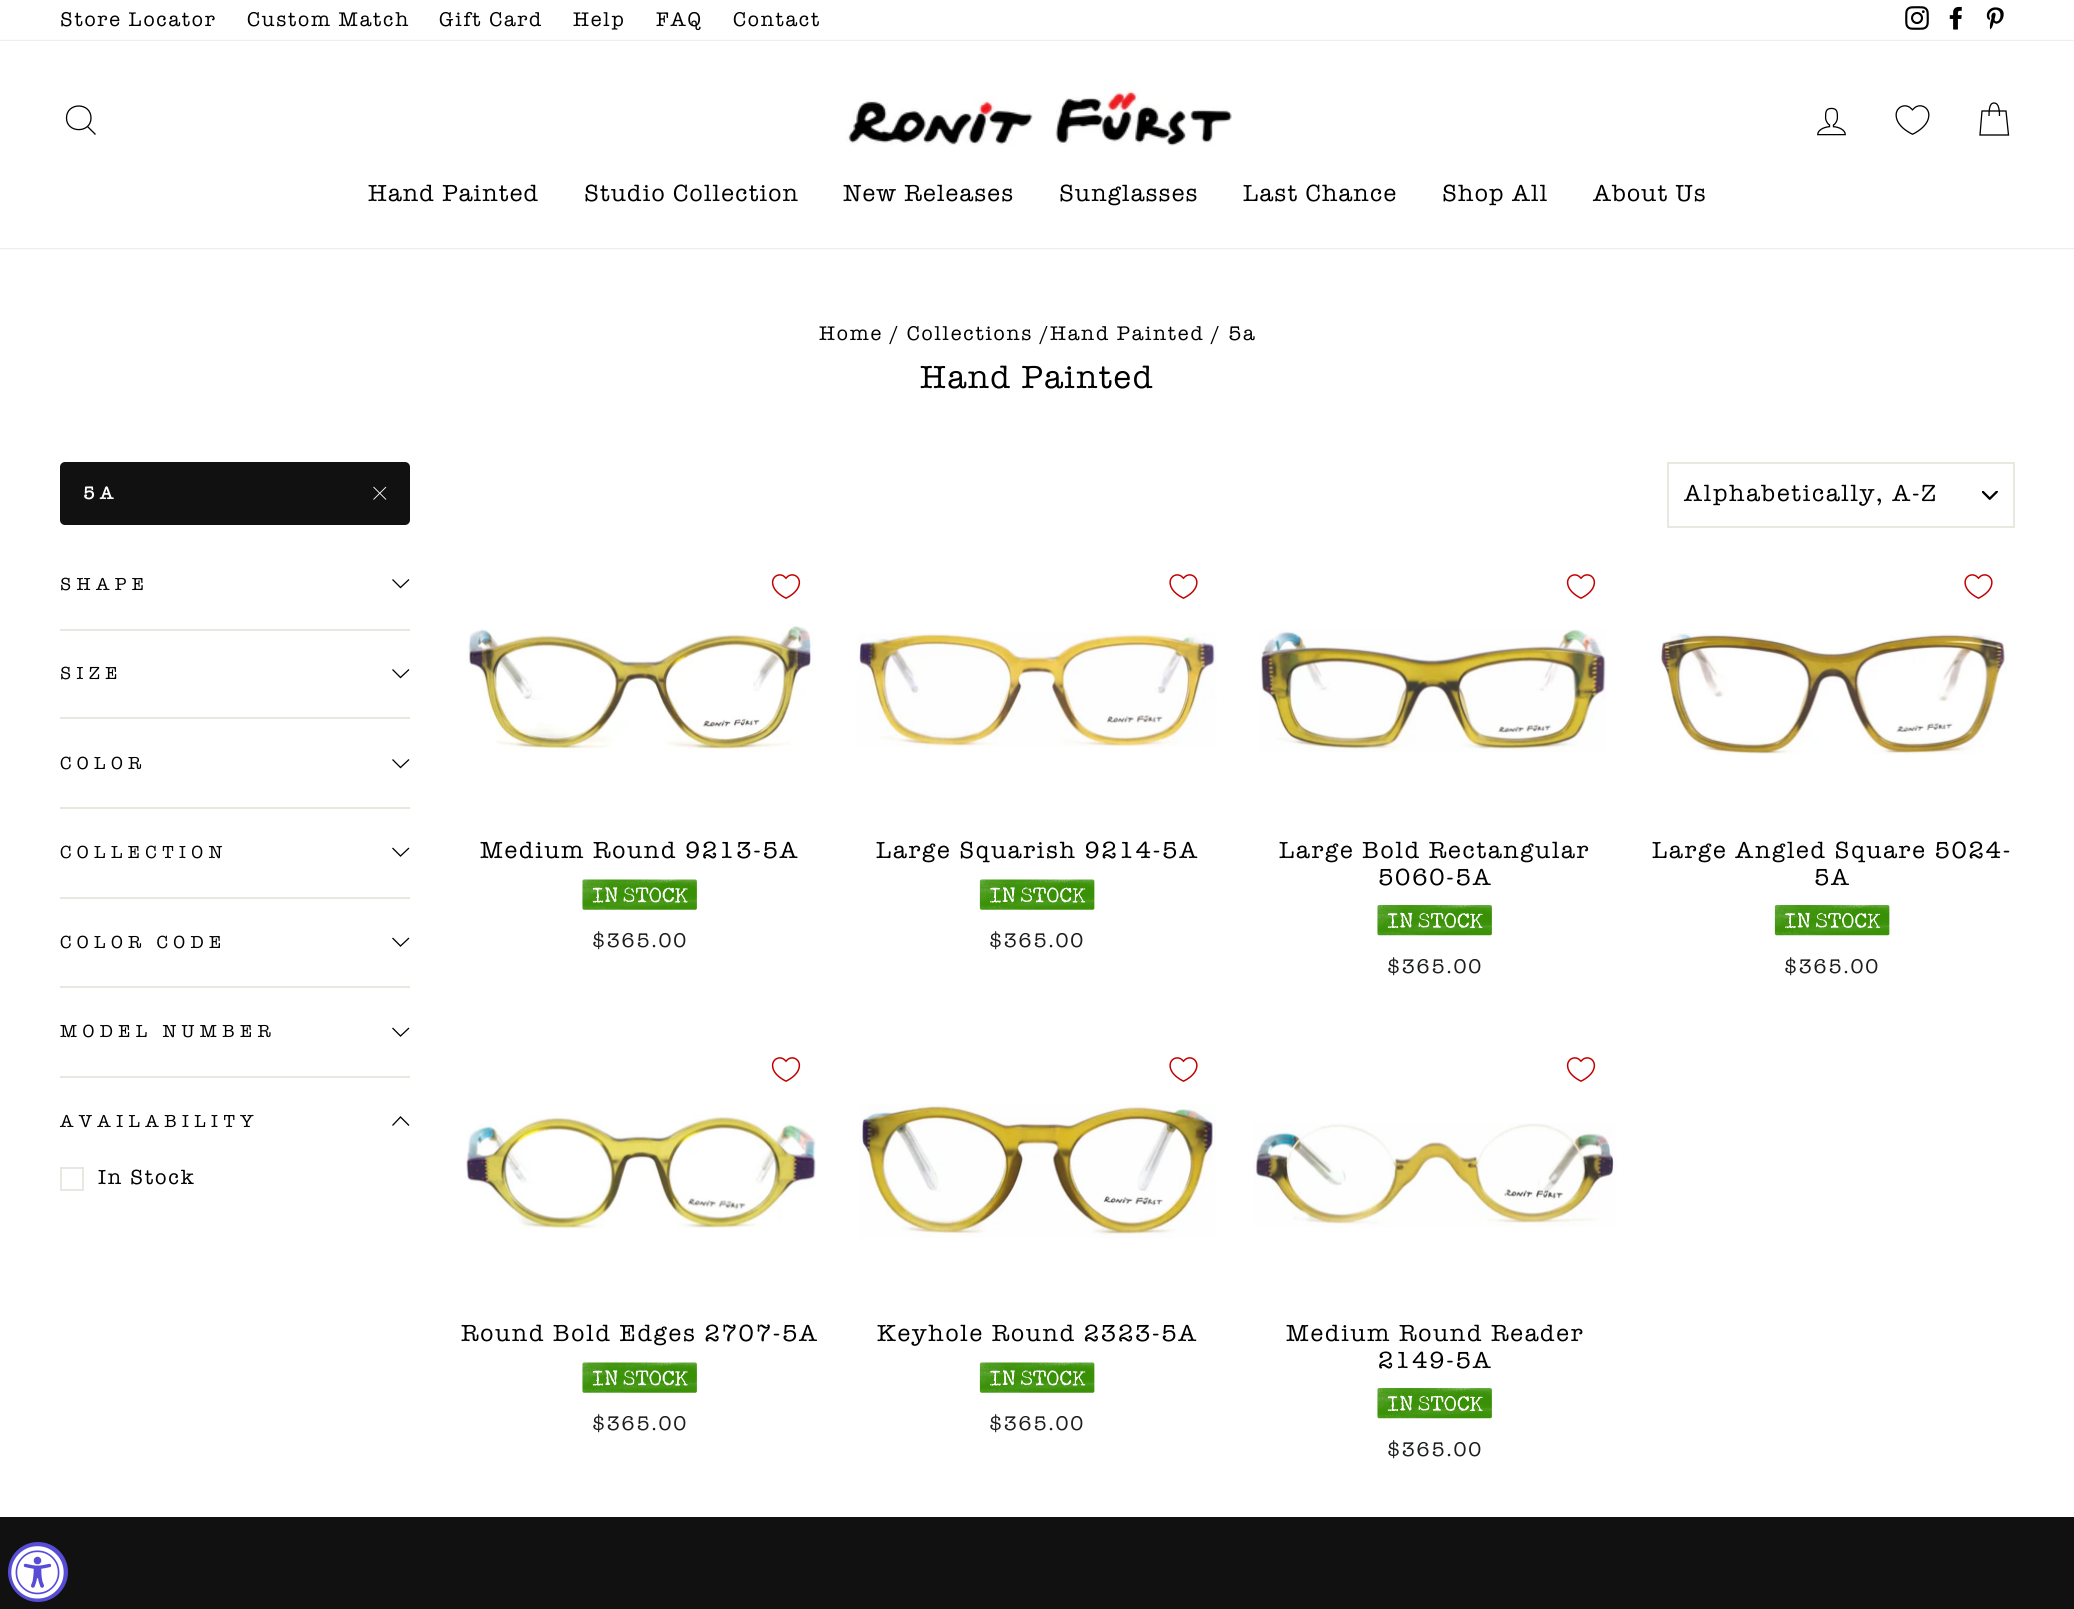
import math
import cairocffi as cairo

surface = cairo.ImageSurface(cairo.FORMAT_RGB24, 2074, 1609)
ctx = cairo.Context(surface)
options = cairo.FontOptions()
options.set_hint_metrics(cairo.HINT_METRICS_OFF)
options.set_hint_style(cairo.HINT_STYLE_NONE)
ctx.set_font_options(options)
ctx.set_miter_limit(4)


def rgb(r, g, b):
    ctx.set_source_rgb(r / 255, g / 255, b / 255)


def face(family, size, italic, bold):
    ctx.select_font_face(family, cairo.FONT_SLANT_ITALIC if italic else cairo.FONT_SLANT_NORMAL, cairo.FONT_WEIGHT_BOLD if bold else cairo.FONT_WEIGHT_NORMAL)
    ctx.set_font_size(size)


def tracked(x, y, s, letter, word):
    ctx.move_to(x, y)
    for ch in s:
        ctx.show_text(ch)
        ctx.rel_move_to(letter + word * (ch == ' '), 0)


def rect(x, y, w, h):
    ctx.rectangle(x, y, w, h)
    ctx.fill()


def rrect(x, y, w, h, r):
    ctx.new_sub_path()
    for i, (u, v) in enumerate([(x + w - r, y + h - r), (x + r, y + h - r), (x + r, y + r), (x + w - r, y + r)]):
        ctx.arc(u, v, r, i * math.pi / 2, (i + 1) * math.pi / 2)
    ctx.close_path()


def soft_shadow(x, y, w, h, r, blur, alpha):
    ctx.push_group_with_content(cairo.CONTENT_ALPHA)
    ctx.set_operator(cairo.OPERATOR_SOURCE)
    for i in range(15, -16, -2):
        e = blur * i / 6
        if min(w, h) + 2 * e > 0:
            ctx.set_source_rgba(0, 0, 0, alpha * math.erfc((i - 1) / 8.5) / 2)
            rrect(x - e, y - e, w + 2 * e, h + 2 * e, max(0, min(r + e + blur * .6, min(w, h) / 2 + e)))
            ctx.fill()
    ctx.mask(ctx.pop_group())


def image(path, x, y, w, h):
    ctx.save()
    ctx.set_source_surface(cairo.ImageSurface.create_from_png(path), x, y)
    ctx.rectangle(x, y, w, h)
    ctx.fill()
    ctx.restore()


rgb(255, 255, 255)
ctx.paint()
face('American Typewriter', 20.4, 0, 0)
rgb(0, 0, 0)
tracked(60, 26, 'Store Locator', 1.8, 0)
tracked(247, 26, 'Custom Match', 1.8, 0)
tracked(439, 26, 'Gift Card', 1.8, 0)
tracked(573, 26, 'Help', 1.8, 0)
tracked(656, 26, 'FAQ', 1.8, 0)
tracked(733, 26, 'Contact', 1.8, 0)
image('image0.png', 1905, 6, 24, 24)
image('image1.png', 1949, 6, 13, 24)
image('image2.png', 1986, 7, 18, 23)
rgb(0, 0, 0)
soft_shadow(0, 41, 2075, 207, 0, 1, 0.2)
rgb(255, 255, 255)
rect(0, 41, 2074, 207)
ctx.new_path()
ctx.move_to(91, 118)
ctx.curve_to(91, 133.5, 66.5, 133.5, 66.5, 118)
ctx.curve_to(66.5, 102, 91, 102, 91, 118)
ctx.close_path()
ctx.move_to(95.5, 134.5)
ctx.line_to(87.5, 126.5)
rgb(0, 0, 0)
ctx.set_line_width(1.3)
ctx.stroke()
image('image3.png', 846, 86, 386, 60)
image('image4.png', 1817, 107, 29, 29)
image('image5.png', 1895, 105, 35, 30)
ctx.new_path()
ctx.move_to(1989, 116)
ctx.curve_to(1989, 105.5, 1991, 103, 1994, 103)
ctx.curve_to(1997, 103, 1999.5, 105.5, 1999.5, 116)
ctx.move_to(1982, 111)
ctx.line_to(2006, 111)
ctx.line_to(2008.5, 135)
ctx.line_to(1980, 135)
ctx.close_path()
ctx.stroke()
face('American Typewriter', 24, 0, 0)
tracked(368, 201, 'Hand Painted', 1.25, 0)
tracked(584, 201, 'Studio Collection', 1.25, 0)
tracked(843, 201, 'New Releases', 1.25, 0)
tracked(1059, 201, 'Sunglasses', 1.25, 0)
tracked(1243, 201, 'Last Chance', 1.25, 0)
tracked(1442, 201, 'Shop All', 1.25, 0)
tracked(1593, 201, 'About Us', 1.25, 0)
face('American Typewriter', 20.4, 0, 0)
tracked(819, 340, 'Home / Collections /Hand Painted / 5a', 1.8, 0)
face('American Typewriter', 33, 0, 0)
tracked(920, 388, 'Hand Painted', 1.6, 0)
rgb(17, 17, 17)
rrect(60, 462, 350, 63, 5)
ctx.fill()
face('American Typewriter', 18, 0, 1)
rgb(255, 255, 255)
tracked(83, 499, '5A', 5.4, 0)
ctx.new_path()
ctx.move_to(373.5, 487)
ctx.line_to(386, 499.5)
ctx.move_to(386, 487)
ctx.line_to(373.5, 499.5)
ctx.set_line_width(0.9)
ctx.stroke()
face('American Typewriter', 18, 0, 0)
rgb(0, 0, 0)
tracked(60, 590, 'SHAPE', 5.4, 0)
ctx.new_path()
ctx.move_to(392.5, 579.5)
ctx.line_to(400.5, 587.5)
ctx.line_to(409, 579.5)
ctx.set_line_width(1.3)
ctx.stroke()
rgb(232, 232, 225)
rect(60, 629, 350, 2)
rgb(0, 0, 0)
tracked(60, 679, 'SIZE', 5.4, 0)
ctx.new_path()
ctx.move_to(392.5, 669.5)
ctx.line_to(400.5, 677.5)
ctx.line_to(409, 669.5)
ctx.stroke()
rgb(232, 232, 225)
rect(60, 717, 350, 2)
rgb(0, 0, 0)
tracked(60, 769, 'COLOR', 5.4, 0)
ctx.new_path()
ctx.move_to(392.5, 759.5)
ctx.line_to(400.5, 767.5)
ctx.line_to(409, 759.5)
ctx.stroke()
rgb(232, 232, 225)
rect(60, 807, 350, 2)
rgb(0, 0, 0)
tracked(60, 858, 'COLLECTION', 5.4, 0)
ctx.new_path()
ctx.move_to(392.5, 848)
ctx.line_to(400.5, 856)
ctx.line_to(409, 848)
ctx.stroke()
rgb(232, 232, 225)
rect(60, 897, 350, 2)
rgb(0, 0, 0)
tracked(60, 948, 'COLOR CODE', 5.4, 0)
ctx.new_path()
ctx.move_to(392.5, 938)
ctx.line_to(400.5, 946)
ctx.line_to(409, 938)
ctx.stroke()
rgb(232, 232, 225)
rect(60, 986, 350, 2)
rgb(0, 0, 0)
tracked(60, 1037, 'MODEL NUMBER', 5.4, 0)
ctx.new_path()
ctx.move_to(392.5, 1028)
ctx.line_to(400.5, 1036)
ctx.line_to(409, 1028)
ctx.stroke()
rgb(232, 232, 225)
rect(60, 1076, 350, 2)
rgb(0, 0, 0)
tracked(60, 1127, 'AVAILABILITY', 5.4, 0)
ctx.new_path()
ctx.move_to(392.5, 1125.5)
ctx.line_to(400.5, 1117)
ctx.line_to(409, 1125.5)
ctx.stroke()
ctx.rectangle(61, 1168, 22, 22)
rgb(232, 232, 225)
ctx.set_line_width(2)
ctx.stroke()
face('American Typewriter', 21, 0, 0)
rgb(0, 0, 0)
tracked(98, 1184, 'In Stock', 1.8, 0)
image('image6.png', 1982, 491, 16, 9)
ctx.rectangle(1668, 463, 346, 64)
rgb(232, 232, 225)
ctx.stroke()
face('American Typewriter', 24, 0, 0)
rgb(0, 0, 0)
tracked(1684, 501, 'Alphabetically, A-Z', 1.8, 0)
image('image7.png', 771, 574, 30, 25)
image('image8.png', 466, 623, 348, 129)
tracked(480, 858, 'Medium Round 9213-5A', 1.8, 0)
image('image9.png', 582, 879, 115, 31)
face('American Typewriter', 20.4, 0, 0)
rgb(28, 29, 29)
tracked(592, 947, '$365.00', 1.8, 0)
image('image10.png', 1169, 574, 29, 25)
image('image11.png', 857, 633, 360, 114)
face('American Typewriter', 24, 0, 0)
rgb(0, 0, 0)
tracked(876, 858, 'Large Squarish 9214-5A', 1.8, 0)
image('image12.png', 979, 879, 116, 31)
face('American Typewriter', 20.4, 0, 0)
rgb(28, 29, 29)
tracked(989, 947, '$365.00', 1.8, 0)
image('image7.png', 1566, 574, 30, 25)
image('image13.png', 1260, 629, 346, 123)
face('American Typewriter', 24, 0, 0)
rgb(0, 0, 0)
tracked(1279, 858, 'Large Bold Rectangular', 1.8, 0)
tracked(1378, 885, '5060-5A', 1.8, 0)
image('image14.png', 1377, 904, 115, 32)
face('American Typewriter', 20.4, 0, 0)
rgb(28, 29, 29)
tracked(1387, 973, '$365.00', 1.8, 0)
image('image10.png', 1964, 574, 29, 25)
image('image15.png', 1658, 633, 349, 122)
face('American Typewriter', 24, 0, 0)
rgb(0, 0, 0)
tracked(1652, 858, 'Large Angled Square 5024-', 1.8, 0)
tracked(1814, 885, '5A', 1.8, 0)
image('image16.png', 1774, 904, 116, 32)
face('American Typewriter', 20.4, 0, 0)
rgb(28, 29, 29)
tracked(1784, 973, '$365.00', 1.8, 0)
image('image7.png', 771, 1057, 30, 25)
image('image17.png', 466, 1115, 350, 114)
face('American Typewriter', 24, 0, 0)
rgb(0, 0, 0)
tracked(461, 1341, 'Round Bold Edges 2707-5A', 1.8, 0)
image('image9.png', 582, 1362, 115, 31)
face('American Typewriter', 20.4, 0, 0)
rgb(28, 29, 29)
tracked(592, 1430, '$365.00', 1.8, 0)
image('image10.png', 1169, 1057, 29, 25)
image('image18.png', 859, 1104, 357, 134)
face('American Typewriter', 24, 0, 0)
rgb(0, 0, 0)
tracked(877, 1341, 'Keyhole Round 2323-5A', 1.8, 0)
image('image12.png', 979, 1362, 116, 31)
face('American Typewriter', 20.4, 0, 0)
rgb(28, 29, 29)
tracked(989, 1430, '$365.00', 1.8, 0)
image('image7.png', 1566, 1057, 30, 25)
image('image19.png', 1253, 1123, 364, 104)
face('American Typewriter', 24, 0, 0)
rgb(0, 0, 0)
tracked(1286, 1341, 'Medium Round Reader', 1.8, 0)
tracked(1378, 1368, '2149-5A', 1.8, 0)
image('image14.png', 1377, 1387, 115, 32)
face('American Typewriter', 20.4, 0, 0)
rgb(28, 29, 29)
tracked(1387, 1456, '$365.00', 1.8, 0)
rgb(17, 17, 17)
rect(0, 1517, 2074, 92)
rgb(87, 76, 213)
ctx.new_path()
ctx.arc(38, 1572, 30, 0, 2 * math.pi)
ctx.fill()
image('image20.png', 11, 1546, 53, 53)
surface.write_to_png('render.png')
